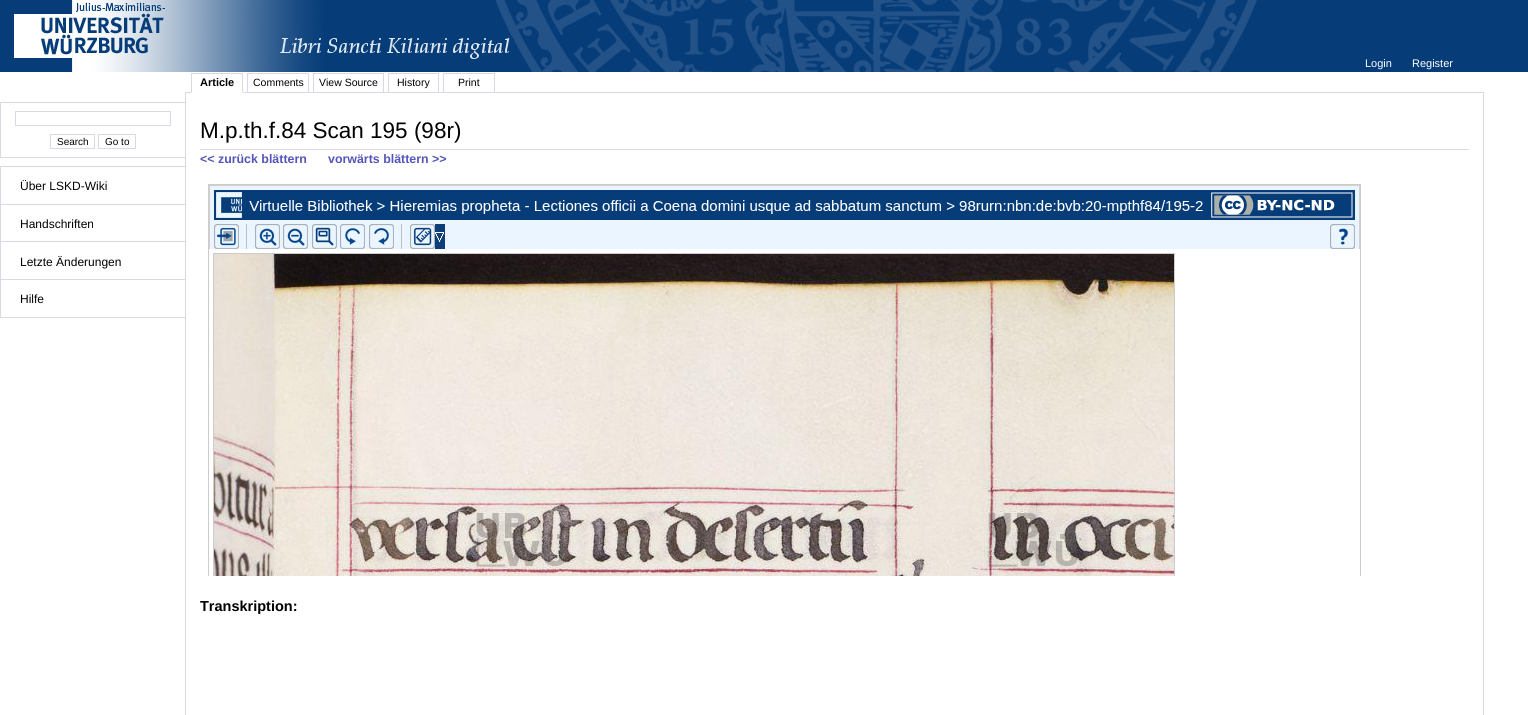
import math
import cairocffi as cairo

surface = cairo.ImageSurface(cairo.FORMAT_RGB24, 1528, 715)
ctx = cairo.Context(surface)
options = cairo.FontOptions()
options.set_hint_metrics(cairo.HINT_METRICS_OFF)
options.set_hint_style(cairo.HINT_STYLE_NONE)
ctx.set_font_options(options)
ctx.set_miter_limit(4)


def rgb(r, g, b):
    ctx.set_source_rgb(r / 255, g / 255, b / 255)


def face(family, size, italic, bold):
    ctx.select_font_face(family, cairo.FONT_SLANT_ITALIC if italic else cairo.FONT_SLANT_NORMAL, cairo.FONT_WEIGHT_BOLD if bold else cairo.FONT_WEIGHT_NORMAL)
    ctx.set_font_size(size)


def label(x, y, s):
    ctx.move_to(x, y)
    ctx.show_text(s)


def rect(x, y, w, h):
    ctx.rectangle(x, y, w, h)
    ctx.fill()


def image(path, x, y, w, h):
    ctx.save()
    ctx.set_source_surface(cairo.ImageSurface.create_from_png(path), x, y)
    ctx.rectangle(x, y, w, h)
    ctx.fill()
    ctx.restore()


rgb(255, 255, 255)
ctx.paint()
rgb(6, 61, 121)
rect(0, 0, 1528, 72)
image('image0.png', 14, 0, 1243, 72)
ctx.rectangle(0.5, 102.5, 185, 55)
rgb(216, 216, 231)
ctx.set_line_width(1)
ctx.stroke()
ctx.rectangle(15.5, 111.5, 155, 14)
ctx.stroke()
ctx.rectangle(50.5, 134.5, 44, 14)
ctx.stroke()
face('Liberation Sans', 10, 0, 0)
rgb(0, 0, 0)
label(57, 145, 'Search')
ctx.rectangle(98.5, 134.5, 37, 14)
rgb(216, 216, 231)
ctx.stroke()
rgb(0, 0, 0)
label(105, 145, 'Go to')
rgb(216, 216, 231)
rect(0, 166, 186, 1)
rect(0, 166, 1, 152)
rect(1, 204, 184, 1)
face('Liberation Sans', 12, 0, 0)
rgb(0, 0, 0)
label(20, 190, 'Über LSKD-Wiki')
rgb(216, 216, 231)
rect(1, 241, 184, 1)
rgb(0, 0, 0)
label(20, 228, 'Handschriften')
rgb(216, 216, 231)
rect(1, 279, 184, 1)
rgb(0, 0, 0)
label(20, 266, 'Letzte Änderungen')
rgb(216, 216, 231)
rect(1, 317, 184, 1)
rgb(0, 0, 0)
label(20, 303, 'Hilfe')
face('Liberation Sans', 11, 0, 0)
rgb(255, 255, 255)
label(1365, 67, 'Login')
label(1412, 67, 'Register')
rgb(216, 216, 231)
rect(191, 73, 52, 1)
ctx.rectangle(185.5, 92.5, 1298, 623)
ctx.stroke()
rect(242, 73, 1, 20)
rgb(255, 255, 255)
rect(191, 92, 52, 1)
rgb(216, 216, 231)
rect(191, 73, 1, 20)
face('Liberation Sans', 11, 0, 1)
rgb(0, 0, 0)
label(200, 86, 'Article')
rgb(216, 216, 231)
rect(247, 73, 62, 1)
rect(308, 73, 1, 19)
rect(247, 73, 1, 19)
face('Liberation Sans', 10.5, 0, 0)
rgb(0, 0, 0)
label(253, 86, 'Comments')
rgb(216, 216, 231)
rect(313, 73, 71, 1)
rect(383, 73, 1, 19)
rect(313, 73, 1, 19)
rgb(0, 0, 0)
label(319, 86, 'View Source')
rgb(216, 216, 231)
rect(388, 73, 51, 1)
rect(438, 73, 1, 19)
rect(388, 73, 1, 19)
rgb(0, 0, 0)
label(397, 86, 'History')
rgb(216, 216, 231)
rect(443, 73, 52, 1)
rect(494, 73, 1, 19)
rect(443, 73, 1, 19)
rgb(0, 0, 0)
label(458, 86, 'Print')
rgb(216, 216, 231)
rect(200, 149, 1269, 1)
face('Liberation Sans', 22.5, 0, 0)
rgb(0, 0, 0)
label(200, 138, 'M.p.th.f.84 Scan 195 (98r)')
face('Liberation Sans', 12.4, 0, 1)
rgb(85, 85, 187)
label(200, 163, '<< zurück blättern')
label(328, 163, 'vorwärts blättern >>')
image('image1.png', 208, 184, 1153, 392)
face('Liberation Sans', 14.5, 0, 1)
rgb(0, 0, 0)
label(200, 611, 'Transkription:')
surface.write_to_png('render.png')
